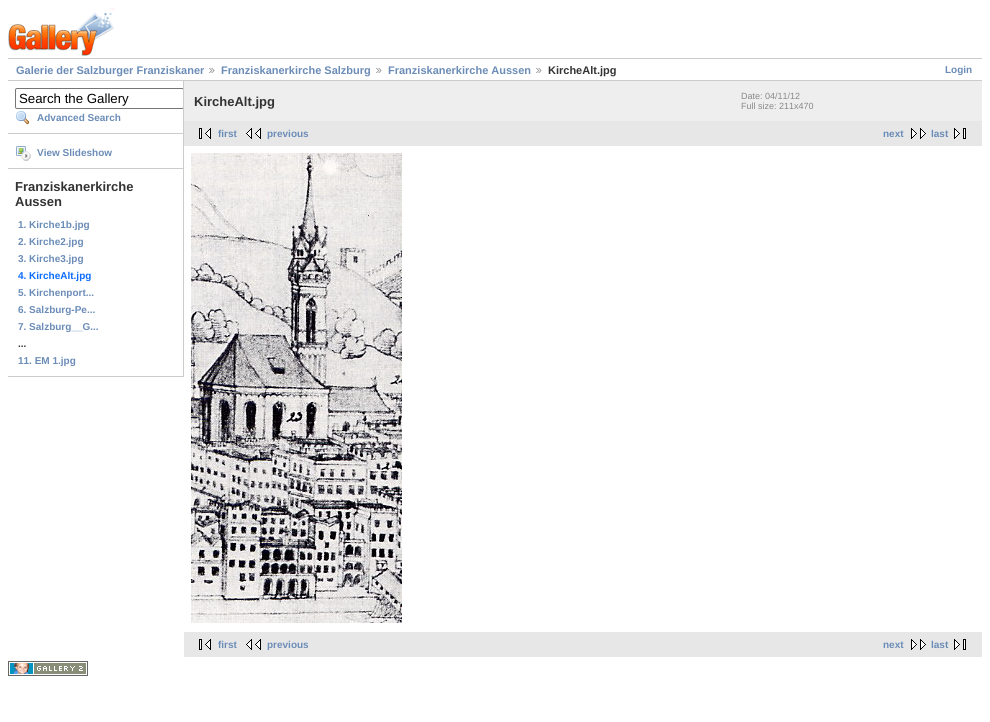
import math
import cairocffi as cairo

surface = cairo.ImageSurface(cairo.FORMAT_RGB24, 990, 722)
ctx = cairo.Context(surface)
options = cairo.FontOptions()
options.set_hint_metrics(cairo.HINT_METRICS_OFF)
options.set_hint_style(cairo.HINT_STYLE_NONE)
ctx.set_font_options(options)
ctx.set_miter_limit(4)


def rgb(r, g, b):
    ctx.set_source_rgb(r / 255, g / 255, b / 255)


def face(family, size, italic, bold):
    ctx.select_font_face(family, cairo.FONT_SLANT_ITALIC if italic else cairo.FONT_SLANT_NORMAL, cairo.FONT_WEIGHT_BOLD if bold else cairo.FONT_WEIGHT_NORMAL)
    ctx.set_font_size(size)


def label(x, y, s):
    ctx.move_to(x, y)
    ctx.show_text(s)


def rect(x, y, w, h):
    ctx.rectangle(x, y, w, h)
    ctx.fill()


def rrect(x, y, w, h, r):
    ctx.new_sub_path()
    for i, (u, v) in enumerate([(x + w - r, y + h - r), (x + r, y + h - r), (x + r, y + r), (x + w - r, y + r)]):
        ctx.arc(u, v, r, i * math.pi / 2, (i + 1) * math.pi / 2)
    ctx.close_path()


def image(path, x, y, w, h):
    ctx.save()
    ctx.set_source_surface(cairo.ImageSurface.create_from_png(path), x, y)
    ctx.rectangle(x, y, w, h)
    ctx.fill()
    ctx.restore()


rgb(255, 255, 255)
ctx.paint()
image('image0.png', 8, 8, 107, 48)
rgb(204, 204, 204)
rect(8, 58, 974, 1)
rect(8, 80, 974, 1)
face('Liberation Sans', 11, 0, 1)
rgb(107, 140, 183)
label(16, 74, 'Galerie der Salzburger Franziskaner')
image('image1.png', 209, 68, 6, 5)
label(221, 74, 'Franziskanerkirche Salzburg')
image('image1.png', 376, 68, 6, 5)
label(388, 74, 'Franziskanerkirche Aussen')
image('image1.png', 536, 68, 6, 5)
rgb(51, 51, 51)
label(548, 74, 'KircheAlt.jpg')
face('Liberation Sans', 10, 0, 1)
rgb(107, 140, 183)
label(945, 73, 'Login')
rgb(204, 204, 204)
rect(183, 81, 1, 296)
rect(8, 133, 175, 1)
ctx.save()
ctx.rectangle(8, 81, 175, 296)
ctx.clip()
rrect(15.5, 88.5, 168, 20, 1.5)
rgb(118, 118, 118)
ctx.set_line_width(1)
ctx.stroke()
ctx.restore()
face('Liberation Sans', 13.25, 0, 0)
rgb(0, 0, 0)
label(19, 103, 'Search the Gallery')
image('image2.png', 16, 111, 13, 14)
face('Liberation Sans', 10, 0, 1)
rgb(107, 140, 183)
label(37, 121, 'Advanced Search')
rgb(204, 204, 204)
rect(8, 168, 175, 1)
image('image3.png', 16, 146, 15, 15)
rgb(107, 140, 183)
label(37, 156, 'View Slideshow')
rgb(204, 204, 204)
rect(8, 376, 175, 1)
face('Liberation Sans', 13, 0, 1)
rgb(51, 51, 51)
label(15, 191, 'Franziskanerkirche')
label(15, 206, 'Aussen')
face('Liberation Sans', 10, 0, 1)
rgb(107, 140, 183)
label(18, 228, '1. Kirche1b.jpg')
label(18, 245, '2. Kirche2.jpg')
label(18, 262, '3. Kirche3.jpg')
rgb(11, 108, 255)
label(18, 279, '4. KircheAlt.jpg')
rgb(107, 140, 183)
label(18, 296, '5. Kirchenport...')
label(18, 313, '6. Salzburg-Pe...')
label(18, 330, '7. Salzburg__G...')
rgb(51, 51, 51)
label(18, 347, '...')
rgb(107, 140, 183)
label(18, 364, '11. EM 1.jpg')
rgb(238, 238, 238)
rect(184, 81, 798, 40)
face('Liberation Sans', 13, 0, 1)
rgb(51, 51, 51)
label(194, 106, 'KircheAlt.jpg')
face('Liberation Sans', 9, 0, 0)
rgb(136, 136, 136)
label(741, 99, 'Date: 04/11/12')
label(741, 109, 'Full size: 211x470')
rgb(231, 231, 231)
rect(184, 121, 798, 25)
image('image4.png', 199, 128, 12, 11)
face('Liberation Sans', 10, 0, 1)
rgb(107, 140, 183)
label(218, 137, 'first')
image('image5.png', 246, 128, 15, 11)
label(267, 137, 'previous')
label(883, 137, 'next')
image('image6.png', 911, 128, 15, 11)
label(931, 137, 'last')
image('image7.png', 954, 128, 12, 11)
image('image8.png', 191, 153, 211, 470)
rgb(231, 231, 231)
rect(184, 632, 798, 25)
image('image4.png', 199, 639, 12, 11)
rgb(107, 140, 183)
label(218, 648, 'first')
image('image5.png', 246, 639, 15, 11)
label(267, 648, 'previous')
label(883, 648, 'next')
image('image6.png', 911, 639, 15, 11)
label(931, 648, 'last')
image('image7.png', 954, 639, 12, 11)
image('image9.png', 8, 661, 80, 15)
surface.write_to_png('render.png')
